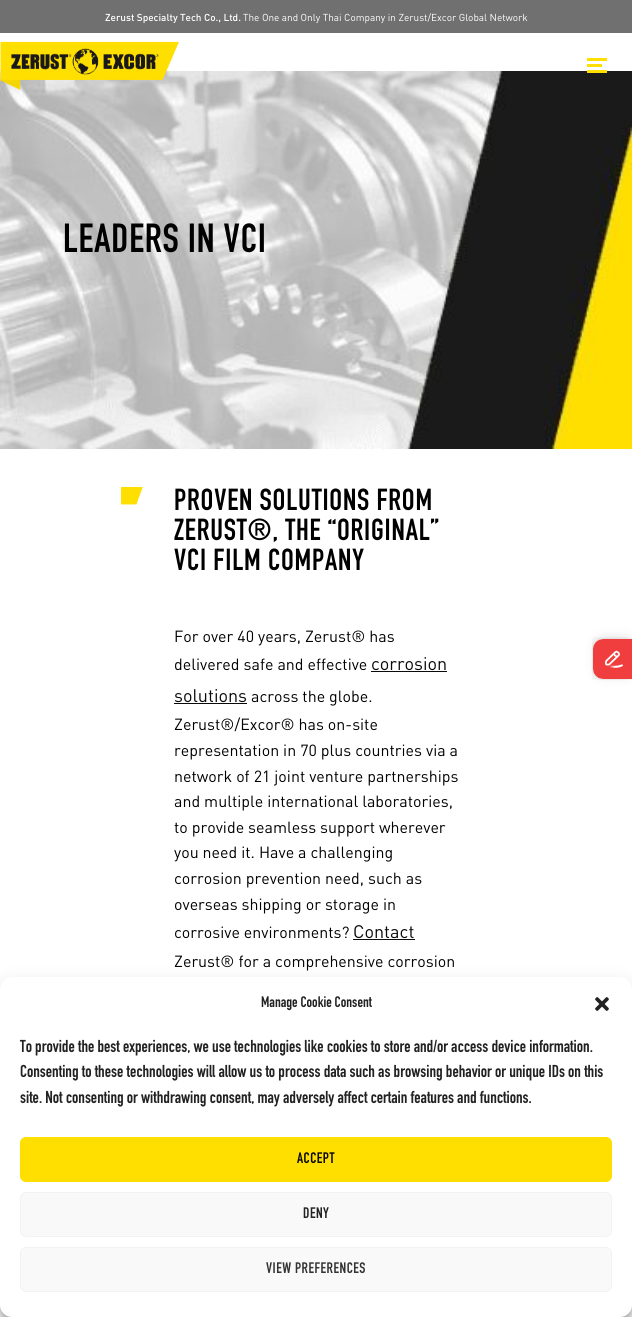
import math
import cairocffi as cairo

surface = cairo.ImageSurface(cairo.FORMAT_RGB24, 632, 1317)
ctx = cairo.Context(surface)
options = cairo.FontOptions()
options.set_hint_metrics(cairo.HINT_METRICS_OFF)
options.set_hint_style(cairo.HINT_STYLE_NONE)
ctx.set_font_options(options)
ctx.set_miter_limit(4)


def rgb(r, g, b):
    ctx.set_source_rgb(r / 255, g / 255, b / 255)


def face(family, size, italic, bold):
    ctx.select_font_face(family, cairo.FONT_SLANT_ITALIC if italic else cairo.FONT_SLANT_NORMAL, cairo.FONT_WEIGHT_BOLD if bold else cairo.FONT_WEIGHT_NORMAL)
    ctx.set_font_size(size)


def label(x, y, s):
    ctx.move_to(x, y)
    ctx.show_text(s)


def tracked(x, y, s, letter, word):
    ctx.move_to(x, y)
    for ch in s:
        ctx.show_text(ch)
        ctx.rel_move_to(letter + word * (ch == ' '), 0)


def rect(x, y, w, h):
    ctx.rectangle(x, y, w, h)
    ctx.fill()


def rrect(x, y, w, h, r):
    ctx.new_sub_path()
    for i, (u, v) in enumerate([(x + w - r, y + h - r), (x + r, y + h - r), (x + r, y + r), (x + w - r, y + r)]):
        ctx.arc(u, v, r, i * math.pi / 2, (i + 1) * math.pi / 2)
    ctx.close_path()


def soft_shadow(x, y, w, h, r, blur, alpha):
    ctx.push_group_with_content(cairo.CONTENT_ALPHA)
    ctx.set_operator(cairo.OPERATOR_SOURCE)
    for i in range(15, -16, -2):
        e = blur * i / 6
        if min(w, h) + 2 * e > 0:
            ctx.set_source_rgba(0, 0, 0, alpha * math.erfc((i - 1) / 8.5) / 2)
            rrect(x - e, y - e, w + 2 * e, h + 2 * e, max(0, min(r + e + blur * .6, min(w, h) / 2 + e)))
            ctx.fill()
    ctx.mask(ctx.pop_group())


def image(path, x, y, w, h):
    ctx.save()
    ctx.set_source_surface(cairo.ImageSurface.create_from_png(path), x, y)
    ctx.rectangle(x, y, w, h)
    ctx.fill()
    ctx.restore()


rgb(255, 255, 255)
ctx.paint()
rgb(112, 112, 112)
rect(0, 0, 632, 33)
face('DIN Medium', 10, 0, 0)
rgb(255, 255, 255)
label(105, 21, 'Zerust Specialty Tech Co., Ltd.')
face('DIN', 10, 0, 0)
label(243, 21, 'The One and Only Thai Company in Zerust/Excor Global Network')
image('image2.png', 0, 71, 632, 378)
image('image0.png', 0, 41, 179, 49)
image('image1.png', 587, 58, 20, 15)
face('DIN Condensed', 40, 0, 1)
rgb(0, 0, 0)
tracked(63, 252, 'LEADERS IN VCI', 0.8, 0)
image('image3.png', 121, 487, 22, 18)
face('DIN Condensed', 30, 0, 1)
tracked(174, 510, 'PROVEN SOLUTIONS FROM', 0.8, 0)
tracked(174, 540, 'ZERUST®, THE “ORIGINAL”', 0.8, 0)
tracked(174, 570, 'VCI FILM COMPANY', 0.8, 0)
face('DIN', 16, 0, 0)
label(174, 642, 'For over 40 years, Zerust® has')
label(174, 670, 'delivered safe and effective')
face('DIN', 18, 0, 0)
rgb(10, 10, 10)
label(371, 670, 'corrosion')
rect(371, 671, 76, 1)
label(174, 702, 'solutions')
rect(174, 703, 73, 1)
face('DIN', 16, 0, 0)
rgb(0, 0, 0)
label(251, 702, 'across the globe.')
label(174, 730, 'Zerust®/Excor® has on-site')
label(174, 756, 'representation in 70 plus countries via a')
label(174, 782, 'network of 21 joint venture partnerships')
label(174, 807, 'and multiple international laboratories,')
label(174, 833, 'to provide seamless support wherever')
label(174, 858, 'you need it. Have a challenging')
label(174, 884, 'corrosion prevention need, such as')
label(174, 910, 'overseas shipping or storage in')
label(174, 938, 'corrosive environments?')
face('DIN', 18, 0, 0)
rgb(10, 10, 10)
label(353, 938, 'Contact')
rect(353, 939, 62, 1)
face('DIN', 16, 0, 0)
rgb(0, 0, 0)
label(174, 967, 'Zerust® for a comprehensive corrosion')
rgb(0, 0, 0)
soft_shadow(594, 636, 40, 42, 10, 5, 0.09)
image('image4.png', 592, 637, 40, 43)
soft_shadow(0, 983, 632, 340, 12, 3, 0.23)
soft_shadow(0, 987, 632, 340, 12, 10, 0.19)
rgb(255, 255, 255)
rrect(0, 977, 632, 340, 12)
ctx.fill()
face('DIN Condensed', 15, 0, 1)
rgb(34, 34, 34)
label(261, 1007, 'Manage Cookie Consent')
image('image5.png', 595, 997, 14, 14)
face('DIN Condensed', 17, 0, 1)
label(20, 1052, 'To provide the best experiences, we use technologies like cookies to store and/or access device information.')
label(20, 1077, 'Consenting to these technologies will allow us to process data such as browsing behavior or unique IDs on this')
label(20, 1103, 'site. Not consenting or withdrawing consent, may adversely affect certain features and functions.')
rgb(255, 223, 0)
rrect(20.5, 1137.5, 591, 44, 5.5)
ctx.fill_preserve()
ctx.set_line_width(1)
ctx.stroke()
face('DIN Condensed', 15, 0, 1)
rgb(10, 10, 10)
tracked(297, 1163, 'ACCEPT', 0.5, 0)
rgb(249, 249, 249)
rrect(20.5, 1192.5, 591, 44, 5.5)
ctx.fill_preserve()
rgb(242, 242, 242)
ctx.stroke()
rgb(34, 34, 34)
tracked(303, 1218, 'DENY', 0.5, 0)
rgb(249, 249, 249)
rrect(20.5, 1247.5, 591, 44, 5.5)
ctx.fill_preserve()
rgb(242, 242, 242)
ctx.stroke()
rgb(51, 51, 51)
tracked(266, 1273, 'VIEW PREFERENCES', 0.5, 0)
surface.write_to_png('render.png')
